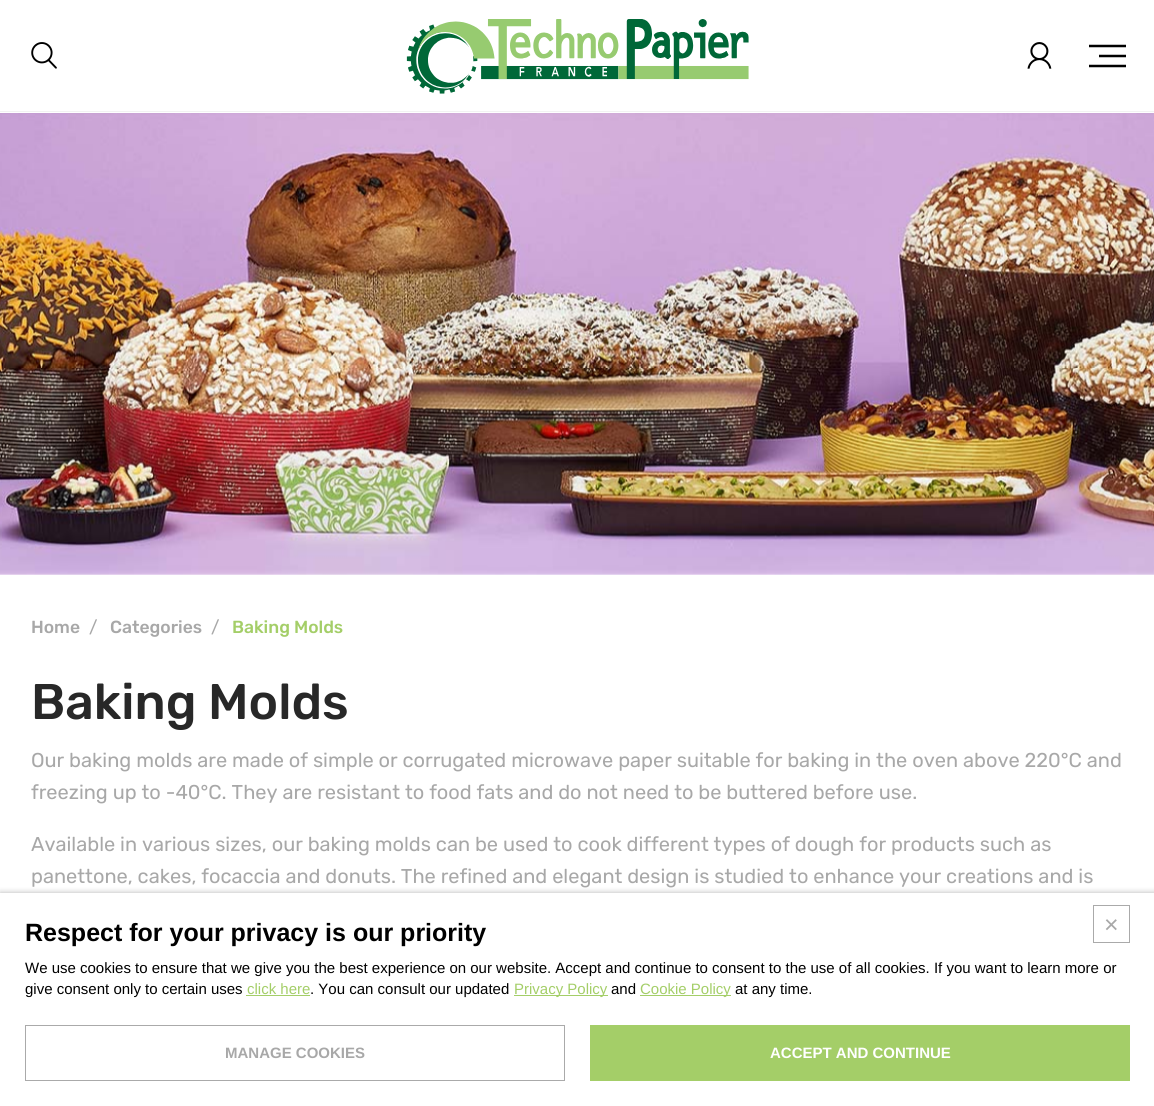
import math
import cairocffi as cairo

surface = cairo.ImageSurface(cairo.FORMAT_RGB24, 1154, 1106)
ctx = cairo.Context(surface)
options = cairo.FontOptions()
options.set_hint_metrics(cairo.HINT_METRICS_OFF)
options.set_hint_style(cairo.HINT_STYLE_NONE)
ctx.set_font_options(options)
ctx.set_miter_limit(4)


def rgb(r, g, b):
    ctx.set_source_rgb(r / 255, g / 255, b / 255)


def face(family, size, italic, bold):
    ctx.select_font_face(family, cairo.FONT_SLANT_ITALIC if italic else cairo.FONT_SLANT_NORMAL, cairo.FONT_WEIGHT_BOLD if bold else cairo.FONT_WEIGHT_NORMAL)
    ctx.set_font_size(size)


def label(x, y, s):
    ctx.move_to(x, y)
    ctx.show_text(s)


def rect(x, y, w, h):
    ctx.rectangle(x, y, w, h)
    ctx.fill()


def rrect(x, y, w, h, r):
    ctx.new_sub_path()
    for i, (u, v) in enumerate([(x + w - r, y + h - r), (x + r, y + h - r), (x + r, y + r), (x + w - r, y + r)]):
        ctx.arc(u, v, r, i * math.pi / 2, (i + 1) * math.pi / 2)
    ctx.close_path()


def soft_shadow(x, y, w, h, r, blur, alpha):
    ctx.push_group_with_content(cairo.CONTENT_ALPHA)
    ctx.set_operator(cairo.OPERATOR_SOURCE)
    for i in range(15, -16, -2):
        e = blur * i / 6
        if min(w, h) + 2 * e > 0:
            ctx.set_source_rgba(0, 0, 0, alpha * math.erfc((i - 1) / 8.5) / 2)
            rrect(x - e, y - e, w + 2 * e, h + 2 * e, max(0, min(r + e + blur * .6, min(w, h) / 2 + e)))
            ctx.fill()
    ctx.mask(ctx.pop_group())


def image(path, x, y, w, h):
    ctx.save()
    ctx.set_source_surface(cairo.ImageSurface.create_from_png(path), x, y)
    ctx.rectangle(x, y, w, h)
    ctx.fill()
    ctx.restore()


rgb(255, 255, 255)
ctx.paint()
image('image0.png', 31, 42, 26, 27)
image('image1.png', 406, 19, 343, 75)
image('image2.png', 1027, 42, 25, 27)
ctx.new_path()
ctx.move_to(1089, 46)
ctx.line_to(1126, 46)
ctx.move_to(1099, 56)
ctx.line_to(1126, 56)
ctx.move_to(1089, 66)
ctx.line_to(1126, 66)
rgb(0, 0, 0)
ctx.set_line_width(2.5)
ctx.stroke()
rgb(242, 242, 242)
rect(0, 111, 1154, 1)
image('image3.png', 0, 113, 1154, 462)
face('Rubik Medium', 17.5, 0, 0)
rgb(168, 168, 168)
label(31, 633, 'Home')
face('Rubik', 17.5, 0, 0)
label(89, 633, '/')
face('Rubik Medium', 17.5, 0, 0)
label(110, 633, 'Categories')
face('Rubik', 17.5, 0, 0)
label(211, 633, '/')
face('Rubik Medium', 17.5, 0, 0)
rgb(164, 206, 104)
label(232, 633, 'Baking Molds')
face('Rubik Medium', 50, 0, 0)
rgb(40, 40, 40)
label(31, 719, 'Baking Molds')
face('Rubik', 20, 0, 0)
rgb(168, 168, 168)
label(31, 767, 'Our baking molds are made of simple or corrugated microwave paper suitable for baking in the oven above 220°C and')
label(31, 799, 'freezing up to -40°C. They are resistant to food fats and do not need to be buttered before use.')
label(31, 851, 'Available in various sizes, our baking molds can be used to cook different types of dough for products such as')
label(31, 883, 'panettone, cakes, focaccia and donuts. The refined and elegant design is studied to enhance your creations and is')
rgb(0, 0, 0)
soft_shadow(0, 893, 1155, 213, 0, 3, 0.3)
rgb(255, 255, 255)
rect(0, 893, 1154, 213)
ctx.rectangle(1093.5, 905.5, 36, 37)
rgb(170, 170, 170)
ctx.set_line_width(1)
ctx.stroke()
face('Liberation Sans', 25, 0, 0)
rgb(168, 168, 168)
label(1104, 933, '×')
face('Liberation Sans', 25, 0, 1)
rgb(0, 0, 0)
label(25, 941, 'Respect for your privacy is our priority')
face('Liberation Sans', 15, 0, 0)
label(25, 973, 'We use cookies to ensure that we give you the best experience on our website. Accept and continue to consent to the use of all cookies. If you want to learn more or')
label(25, 994, 'give consent only to certain uses')
rgb(164, 206, 104)
label(247, 994, 'click here')
rect(246, 995, 64, 1)
rgb(0, 0, 0)
label(310, 994, '. You can consult our updated')
rgb(164, 206, 104)
rect(514, 995, 94, 1)
label(514, 994, 'Privacy Policy')
rgb(0, 0, 0)
label(611, 994, 'and')
rgb(164, 206, 104)
rect(640, 995, 91, 1)
label(640, 994, 'Cookie Policy')
rgb(0, 0, 0)
label(735, 994, 'at any time.')
ctx.rectangle(25.5, 1025.5, 539, 55)
rgb(170, 170, 170)
ctx.stroke()
face('Liberation Sans', 15, 0, 1)
rgb(168, 168, 168)
label(225, 1058, 'MANAGE COOKIES')
rgb(164, 206, 104)
rect(590, 1025, 540, 56)
rgb(255, 255, 255)
label(770, 1058, 'ACCEPT AND CONTINUE')
surface.write_to_png('render.png')
